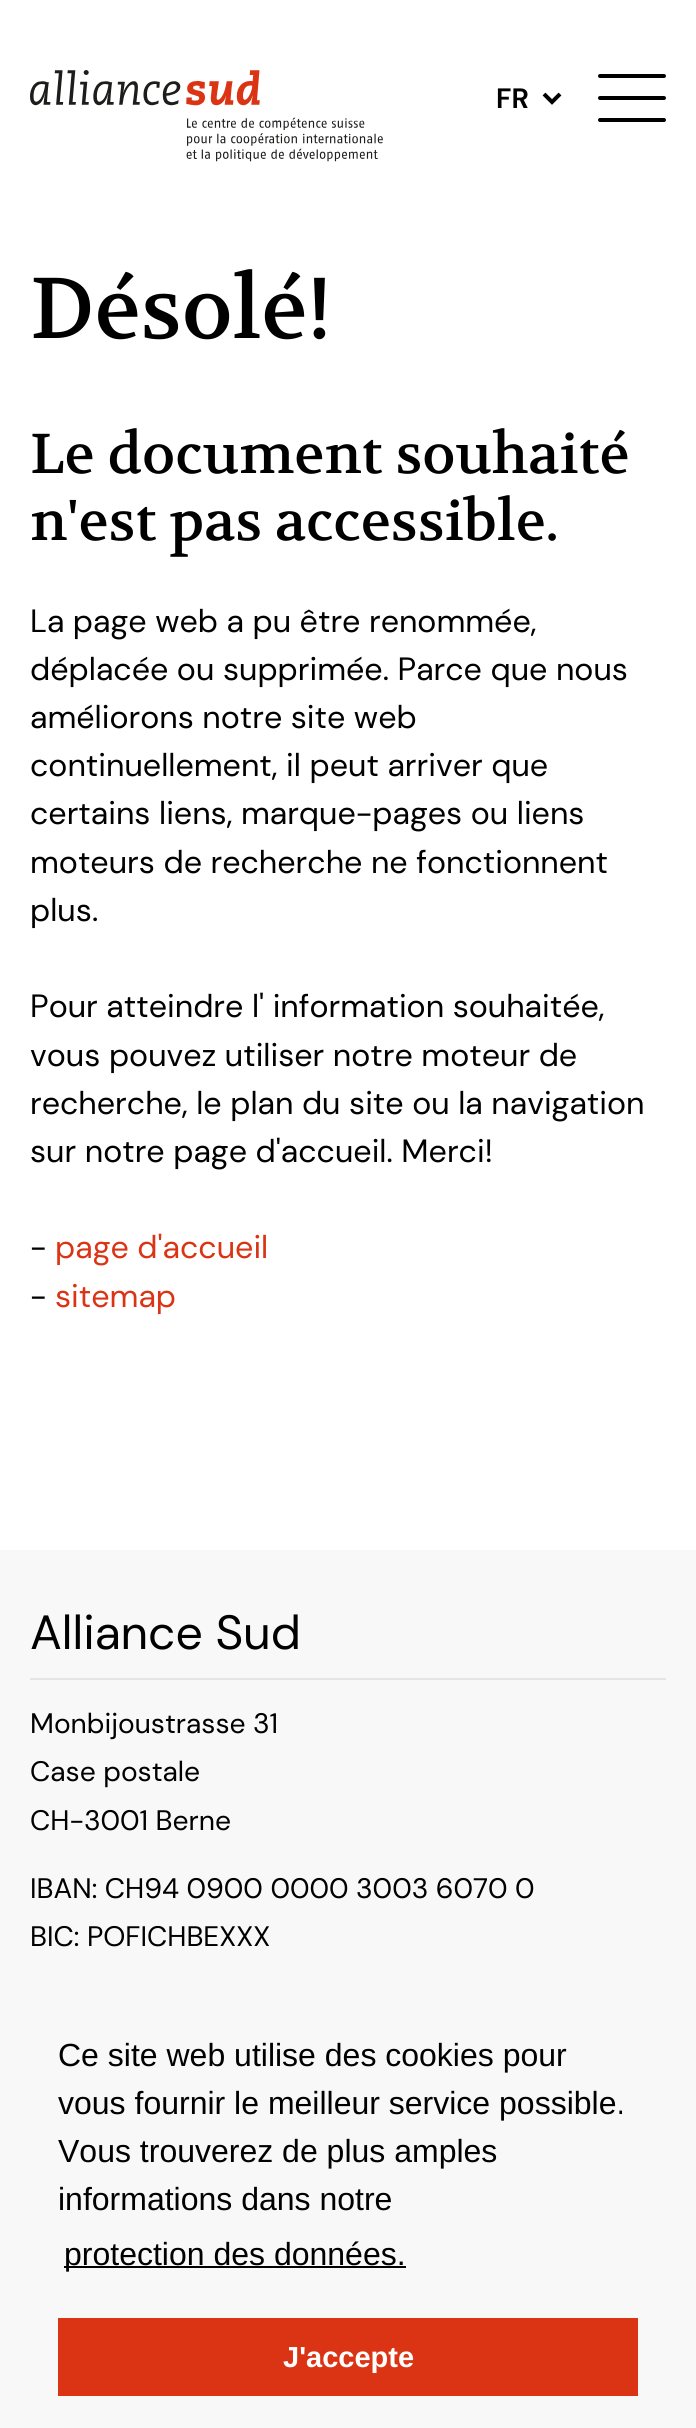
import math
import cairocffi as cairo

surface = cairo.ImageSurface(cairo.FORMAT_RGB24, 696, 2428)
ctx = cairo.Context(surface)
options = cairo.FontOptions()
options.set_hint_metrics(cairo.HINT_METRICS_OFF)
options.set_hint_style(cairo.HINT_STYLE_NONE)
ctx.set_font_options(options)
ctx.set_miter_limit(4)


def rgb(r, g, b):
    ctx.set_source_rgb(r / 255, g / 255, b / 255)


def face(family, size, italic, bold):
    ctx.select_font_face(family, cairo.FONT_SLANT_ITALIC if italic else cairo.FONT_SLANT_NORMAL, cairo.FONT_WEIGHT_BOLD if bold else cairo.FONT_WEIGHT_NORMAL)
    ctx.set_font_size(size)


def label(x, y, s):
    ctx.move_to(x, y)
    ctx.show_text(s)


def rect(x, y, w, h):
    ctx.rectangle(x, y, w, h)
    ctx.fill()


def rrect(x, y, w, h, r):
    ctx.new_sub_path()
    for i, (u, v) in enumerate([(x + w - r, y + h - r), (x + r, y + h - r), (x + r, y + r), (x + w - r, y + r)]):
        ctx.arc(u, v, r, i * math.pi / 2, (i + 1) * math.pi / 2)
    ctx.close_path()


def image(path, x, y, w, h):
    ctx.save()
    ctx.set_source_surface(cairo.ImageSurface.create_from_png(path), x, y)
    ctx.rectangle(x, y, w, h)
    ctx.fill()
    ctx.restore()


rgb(255, 255, 255)
ctx.paint()
image('image0.png', 30, 70, 353, 92)
ctx.new_path()
ctx.move_to(544, 94)
ctx.line_to(552, 102)
ctx.line_to(560, 94)
rgb(0, 0, 0)
ctx.set_line_width(4)
ctx.stroke()
face('DM Sans', 28, 0, 1)
label(496, 108, 'FR')
rrect(598, 74, 68, 4, 2)
ctx.fill()
rrect(598, 96, 68, 4, 2)
ctx.fill()
rrect(598, 118, 68, 4, 2)
ctx.fill()
face('Volkhov', 86, 0, 0)
label(30, 338, 'Désolé!')
face('Volkhov', 56, 0, 0)
label(30, 473, 'Le document souhaité')
label(30, 540, 'n\'est pas accessible.')
face('DM Sans', 32.2, 0, 0)
label(30, 632, 'La page web a pu être renommée,')
label(30, 680, 'déplacée ou supprimée. Parce que nous')
label(30, 728, 'améliorons notre site web')
label(30, 776, 'continuellement, il peut arriver que')
label(30, 824, 'certains liens, marque-pages ou liens')
label(30, 873, 'moteurs de recherche ne fonctionnent')
label(30, 921, 'plus.')
label(30, 1017, 'Pour atteindre l\' information souhaitée,')
label(30, 1066, 'vous pouvez utiliser notre moteur de')
label(30, 1114, 'recherche, le plan du site ou la navigation')
label(30, 1162, 'sur notre page d\'accueil. Merci!')
label(30, 1258, '-')
rgb(219, 52, 21)
label(55, 1258, 'page d\'accueil')
rgb(0, 0, 0)
label(30, 1307, '-')
rgb(219, 52, 21)
label(55, 1307, 'sitemap')
rgb(248, 248, 248)
rect(0, 1550, 696, 878)
rgb(229, 229, 229)
rect(30, 1678, 636, 2)
face('DM Sans', 48, 0, 0)
rgb(0, 0, 0)
label(30, 1649, 'Alliance Sud')
face('DM Sans', 28.2, 0, 0)
label(30, 1733, 'Monbijoustrasse 31')
label(30, 1781, 'Case postale')
label(30, 1830, 'CH-3001 Berne')
label(30, 1898, 'IBAN: CH94 0900 0000 3003 6070 0')
label(30, 1946, 'BIC: POFICHBEXXX')
face('Liberation Sans', 32, 0, 0)
label(58, 2066, 'Ce site web utilise des cookies pour')
label(58, 2114, 'vous fournir le meilleur service possible.')
label(58, 2162, 'Vous trouverez de plus amples')
label(58, 2210, 'informations dans notre')
rect(64, 2266, 342, 2)
label(64, 2265, 'protection des données.')
rgb(219, 52, 21)
rect(58, 2318, 580, 78)
face('Liberation Sans', 29, 0, 1)
rgb(255, 255, 255)
label(283, 2367, 'J\'accepte')
surface.write_to_png('render.png')
